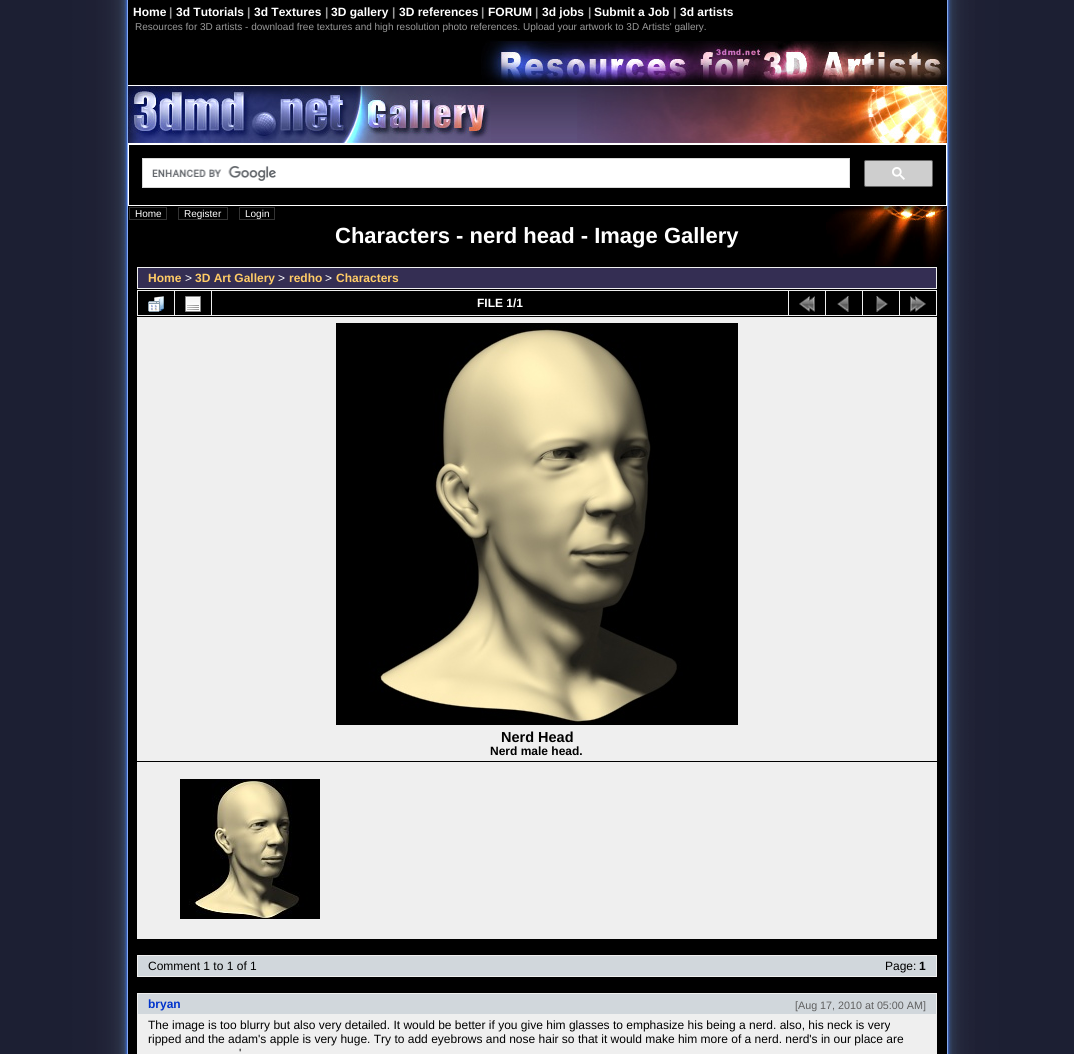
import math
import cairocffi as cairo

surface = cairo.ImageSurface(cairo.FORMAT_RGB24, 1074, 1054)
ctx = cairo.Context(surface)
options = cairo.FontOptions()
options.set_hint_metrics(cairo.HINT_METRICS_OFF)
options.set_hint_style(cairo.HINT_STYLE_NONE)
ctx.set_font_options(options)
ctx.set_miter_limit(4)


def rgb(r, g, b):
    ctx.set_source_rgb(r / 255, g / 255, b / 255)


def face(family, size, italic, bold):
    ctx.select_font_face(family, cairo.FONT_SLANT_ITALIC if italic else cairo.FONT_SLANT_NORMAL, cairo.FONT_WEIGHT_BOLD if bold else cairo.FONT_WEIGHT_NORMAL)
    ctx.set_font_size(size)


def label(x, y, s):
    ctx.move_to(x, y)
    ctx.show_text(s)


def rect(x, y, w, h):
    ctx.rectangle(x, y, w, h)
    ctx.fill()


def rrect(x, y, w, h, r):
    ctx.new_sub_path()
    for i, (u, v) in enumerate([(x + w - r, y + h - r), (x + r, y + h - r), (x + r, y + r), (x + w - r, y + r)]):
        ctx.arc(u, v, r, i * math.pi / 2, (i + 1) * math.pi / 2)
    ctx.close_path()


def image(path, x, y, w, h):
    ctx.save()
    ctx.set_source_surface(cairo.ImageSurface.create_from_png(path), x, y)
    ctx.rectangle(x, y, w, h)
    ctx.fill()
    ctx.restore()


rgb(28, 31, 51)
ctx.paint()
image('image0.png', 25, 0, 1024, 1054)
image('image1.png', 481, 40, 466, 45)
face('Liberation Sans', 12, 0, 1)
rgb(255, 255, 255)
label(133, 16, 'Home')
rgb(153, 153, 153)
label(169, 16, '|')
rgb(255, 255, 255)
label(176, 16, '3d Tutorials')
rgb(153, 153, 153)
label(247, 16, '|')
rgb(255, 255, 255)
label(254, 16, '3d Textures')
rgb(153, 153, 153)
label(325, 16, '|')
rgb(255, 255, 255)
label(331, 16, '3D gallery')
rgb(153, 153, 153)
label(392, 16, '|')
rgb(255, 255, 255)
label(399, 16, '3D references')
rgb(153, 153, 153)
label(481, 16, '|')
rgb(255, 255, 255)
label(488, 16, 'FORUM')
rgb(153, 153, 153)
label(535, 16, '|')
rgb(255, 255, 255)
label(542, 16, '3d jobs')
rgb(153, 153, 153)
label(588, 16, '|')
rgb(255, 255, 255)
label(594, 16, 'Submit a Job')
rgb(153, 153, 153)
label(673, 16, '|')
rgb(255, 255, 255)
label(680, 16, '3d artists')
face('Liberation Sans', 10, 0, 0)
rgb(153, 153, 153)
label(135, 30, 'Resources for 3D artists - download free textures and high resolution photo references. Upload your artwork to 3D Artists\' gallery.')
image('image2.png', 491, 86, 86, 57)
rgb(255, 255, 255)
rect(128, 85, 819, 1)
rect(128, 143, 819, 1)
image('image3.png', 128, 86, 363, 57)
image('image4.png', 577, 86, 370, 57)
ctx.rectangle(128.5, 144.5, 818, 61)
ctx.set_line_width(1)
ctx.stroke()
ctx.rectangle(142.5, 158.5, 707, 29)
ctx.fill_preserve()
rgb(217, 217, 217)
ctx.stroke()
image('image5.png', 152, 166, 124, 15)
rgb(206, 206, 206)
rrect(864.5, 160.5, 68, 26, 1.5)
ctx.fill_preserve()
rgb(102, 102, 102)
ctx.stroke()
image('image6.png', 892, 167, 13, 13)
image('image7.png', 826, 206, 121, 60)
ctx.rectangle(129.5, 207.5, 37, 12)
rgb(51, 51, 51)
ctx.stroke()
rgb(255, 255, 255)
label(135, 217, 'Home')
ctx.rectangle(178.5, 207.5, 49, 12)
rgb(51, 51, 51)
ctx.stroke()
rgb(255, 255, 255)
label(184, 217, 'Register')
ctx.rectangle(239.5, 207.5, 35, 12)
rgb(51, 51, 51)
ctx.stroke()
rgb(255, 255, 255)
label(245, 217, 'Login')
face('Liberation Sans', 22, 0, 1)
label(335, 243, 'Characters - nerd head - Image Gallery')
rgb(239, 239, 239)
rect(137, 267, 800, 22)
rgb(52, 46, 83)
rect(138, 268, 798, 20)
face('Liberation Sans', 12, 0, 1)
rgb(255, 204, 102)
label(148, 282, 'Home')
face('Liberation Sans', 12, 0, 0)
rgb(255, 255, 255)
label(185, 282, '>')
face('Liberation Sans', 12, 0, 1)
rgb(255, 204, 102)
label(195, 282, '3D Art Gallery')
face('Liberation Sans', 12, 0, 0)
rgb(255, 255, 255)
label(278, 282, '>')
face('Liberation Sans', 12, 0, 1)
rgb(255, 204, 102)
label(289, 282, 'redho')
face('Liberation Sans', 12, 0, 0)
rgb(255, 255, 255)
label(325, 282, '>')
face('Liberation Sans', 12, 0, 1)
rgb(255, 204, 102)
label(336, 282, 'Characters')
rgb(239, 239, 239)
rect(137, 290, 800, 26)
rgb(0, 0, 0)
rect(138, 291, 36, 24)
image('image8.png', 148, 296, 16, 16)
rect(175, 291, 36, 24)
image('image9.png', 185, 296, 16, 16)
rect(212, 291, 576, 24)
rgb(255, 255, 255)
label(477, 307, 'FILE 1/1')
rgb(0, 0, 0)
rect(789, 291, 36, 24)
image('image10.png', 799, 296, 16, 16)
rect(826, 291, 36, 24)
image('image11.png', 837, 296, 12, 16)
rect(863, 291, 36, 24)
image('image12.png', 876, 296, 12, 16)
rect(900, 291, 36, 24)
image('image13.png', 910, 296, 16, 16)
rgb(239, 239, 239)
rect(137, 317, 800, 444)
ctx.rectangle(336.5, 323.5, 401, 401)
rgb(0, 0, 0)
ctx.stroke()
image('image14.png', 337, 324, 400, 400)
face('Liberation Sans', 14.5, 0, 1)
label(501, 742, 'Nerd Head')
face('Liberation Sans', 12, 0, 1)
label(490, 755, 'Nerd male head.')
rgb(239, 239, 239)
rect(137, 762, 800, 177)
image('image15.png', 180, 779, 140, 140)
rect(137, 955, 800, 22)
rgb(209, 215, 220)
rect(138, 956, 798, 20)
face('Liberation Sans', 12, 0, 0)
rgb(0, 0, 0)
label(148, 970, 'Comment 1 to 1 of 1')
label(885, 970, 'Page:')
face('Liberation Sans', 12, 0, 1)
label(919, 970, '1')
rgb(239, 239, 239)
rect(137, 993, 800, 61)
rgb(209, 215, 220)
rect(138, 994, 798, 20)
rgb(0, 51, 204)
label(148, 1008, 'bryan')
face('Liberation Sans', 10.75, 0, 0)
rgb(95, 95, 95)
label(795, 1009, '[Aug 17, 2010 at 05:00 AM]')
face('Liberation Sans', 12, 0, 0)
rgb(0, 0, 0)
label(148, 1029, 'The image is too blurry but also very detailed. It would be better if you give him glasses to emphasize his being a nerd. also, his neck is very')
label(148, 1043, 'ripped and the adam\'s apple is very huge. Try to add eyebrows and nose hair so that it would make him more of a nerd. nerd\'s in our place are')
label(239, 1057, '\'')
surface.write_to_png('render.png')
